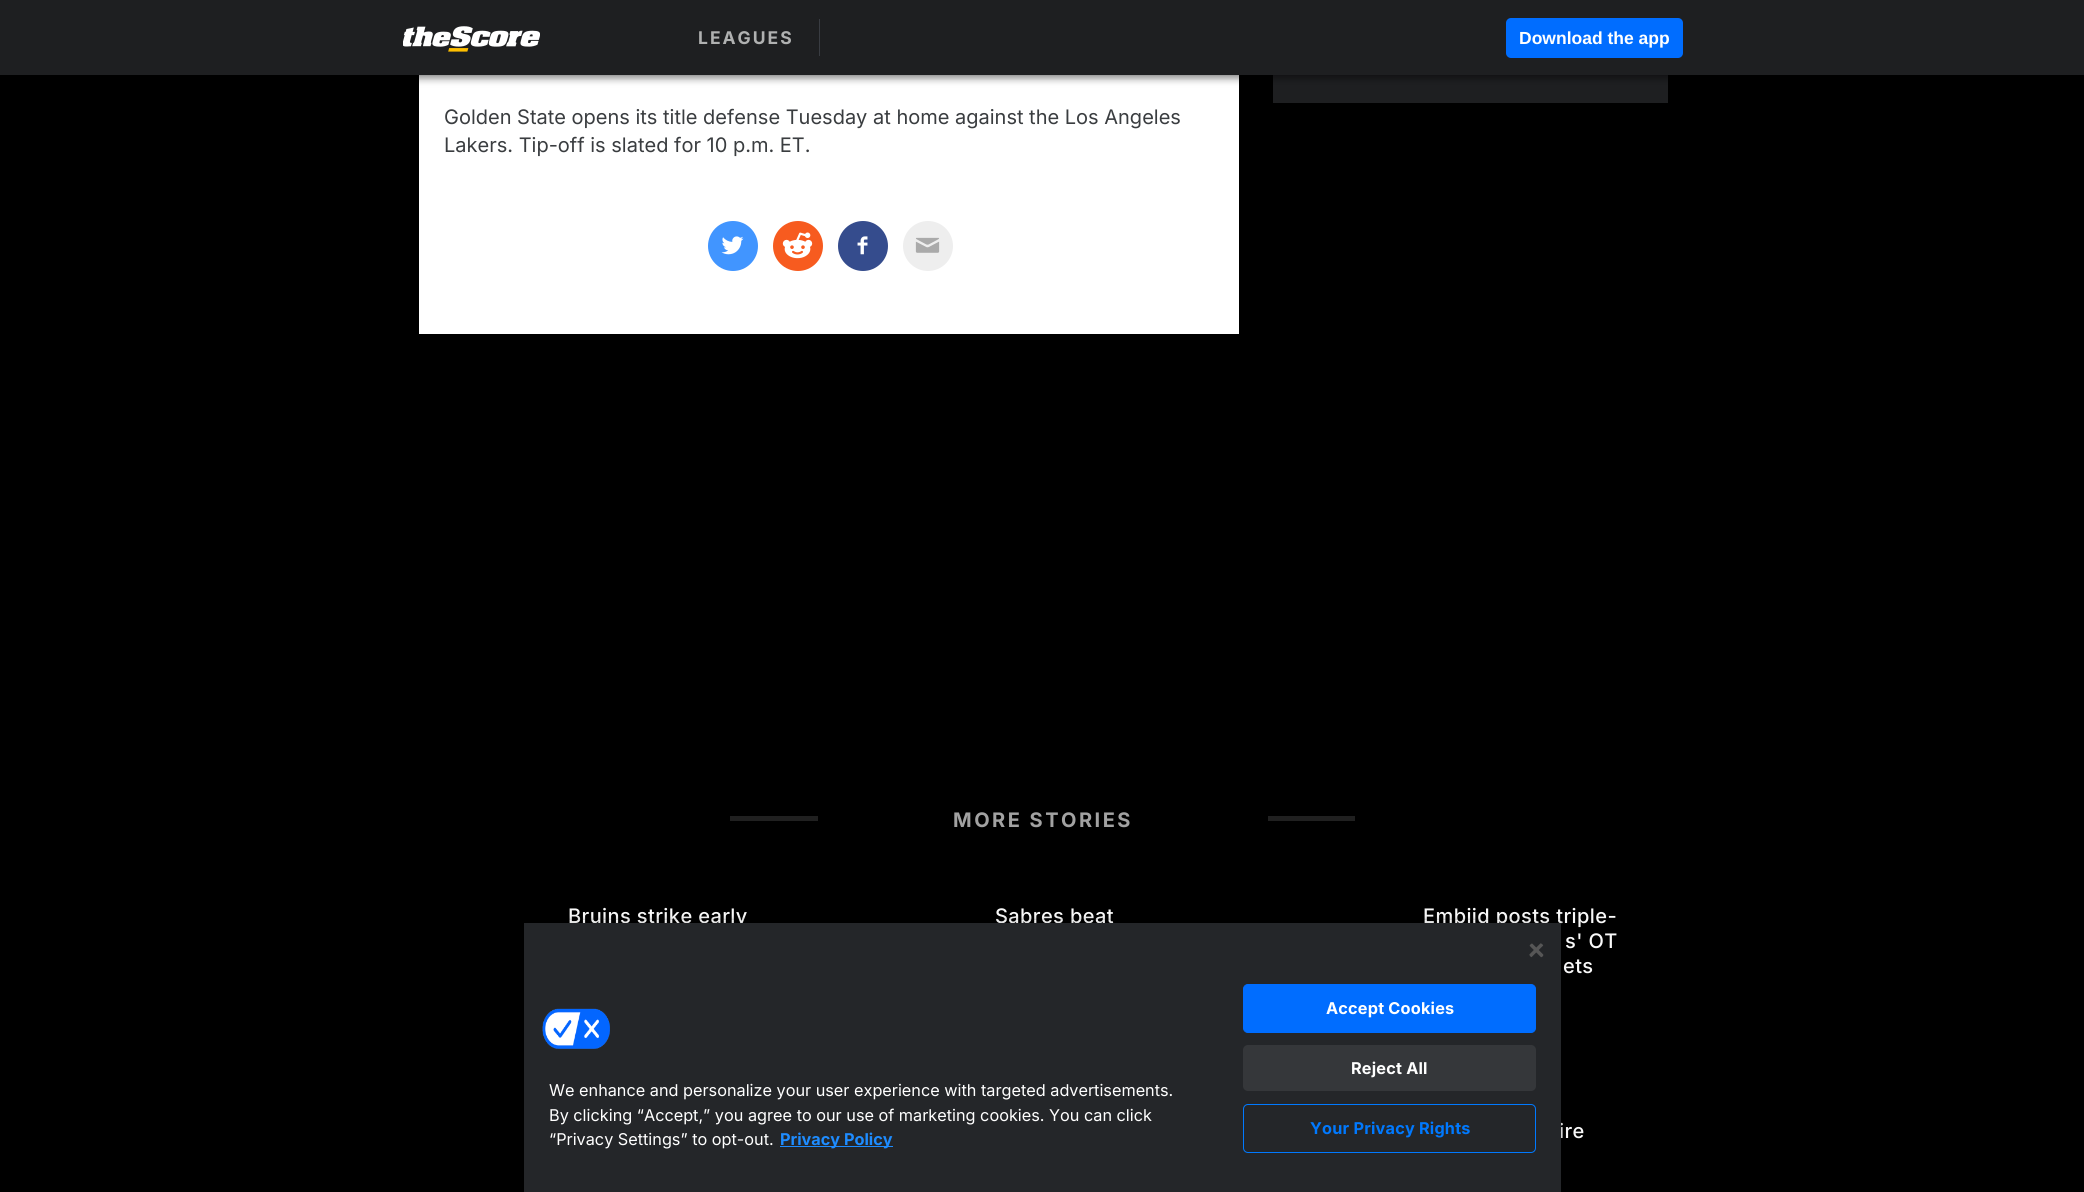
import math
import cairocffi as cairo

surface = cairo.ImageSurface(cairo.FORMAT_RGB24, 2084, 1192)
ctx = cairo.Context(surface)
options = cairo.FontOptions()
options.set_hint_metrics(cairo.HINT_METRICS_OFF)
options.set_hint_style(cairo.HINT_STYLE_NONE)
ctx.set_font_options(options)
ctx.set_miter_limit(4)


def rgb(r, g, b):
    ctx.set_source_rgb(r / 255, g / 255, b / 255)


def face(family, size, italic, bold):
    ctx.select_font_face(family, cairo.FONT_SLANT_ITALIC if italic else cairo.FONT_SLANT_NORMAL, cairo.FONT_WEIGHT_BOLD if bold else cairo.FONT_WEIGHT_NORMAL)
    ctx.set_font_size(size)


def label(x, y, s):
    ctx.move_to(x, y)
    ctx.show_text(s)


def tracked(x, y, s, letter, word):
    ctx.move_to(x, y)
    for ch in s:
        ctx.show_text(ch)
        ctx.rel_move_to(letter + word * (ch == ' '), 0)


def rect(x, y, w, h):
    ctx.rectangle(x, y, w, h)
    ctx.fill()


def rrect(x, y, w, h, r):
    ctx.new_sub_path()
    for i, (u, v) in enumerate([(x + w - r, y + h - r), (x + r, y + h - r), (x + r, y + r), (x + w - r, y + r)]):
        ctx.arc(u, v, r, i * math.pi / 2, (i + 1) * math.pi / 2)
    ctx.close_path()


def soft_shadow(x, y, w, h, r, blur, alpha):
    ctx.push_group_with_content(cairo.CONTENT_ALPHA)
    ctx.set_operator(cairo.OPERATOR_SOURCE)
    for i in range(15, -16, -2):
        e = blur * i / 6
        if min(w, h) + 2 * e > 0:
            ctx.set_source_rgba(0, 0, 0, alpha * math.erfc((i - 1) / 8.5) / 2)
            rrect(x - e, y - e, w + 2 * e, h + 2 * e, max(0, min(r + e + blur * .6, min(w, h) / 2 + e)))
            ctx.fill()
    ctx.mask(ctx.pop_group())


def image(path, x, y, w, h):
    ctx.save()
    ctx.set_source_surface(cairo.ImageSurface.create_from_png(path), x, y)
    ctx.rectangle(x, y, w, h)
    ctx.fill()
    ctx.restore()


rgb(0, 0, 0)
ctx.paint()
rgb(30, 31, 33)
rect(1273, 75, 395, 28)
rgb(255, 255, 255)
rect(419, 75, 820, 259)
rgb(0, 0, 0)
soft_shadow(0, 3, 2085, 75, 0, 4, 0.5)
rgb(30, 31, 33)
rect(0, 0, 2084, 75)
image('image0.png', 403, 26, 137, 26)
rgb(57, 60, 66)
rect(819, 19, 1, 37)
face('Inter', 17.5, 0, 1)
rgb(176, 177, 177)
tracked(698, 44, 'LEAGUES', 2, 0)
rgb(0, 109, 255)
rrect(1506, 18, 177, 40, 5)
ctx.fill()
face('Liberation Sans', 17.5, 0, 1)
rgb(255, 255, 255)
label(1519, 44, 'Download the app')
face('Inter', 20, 0, 0)
rgb(58, 61, 64)
label(444, 124, 'Golden State opens its title defense Tuesday at home against the Los Angeles')
label(444, 152, 'Lakers. Tip-off is slated for 10 p.m. ET.')
rgb(65, 149, 255)
ctx.new_path()
ctx.arc(733, 246, 25, 0, 2 * math.pi)
ctx.fill()
image('image1.png', 721, 236, 23, 19)
rgb(247, 91, 31)
ctx.arc(798, 246, 25, 0, 2 * math.pi)
ctx.fill()
image('image2.png', 782, 232, 31, 27)
rgb(53, 76, 141)
ctx.arc(863, 246, 25, 0, 2 * math.pi)
ctx.fill()
image('image3.png', 857, 236, 11, 19)
rgb(238, 238, 238)
ctx.arc(928, 246, 25, 0, 2 * math.pi)
ctx.fill()
image('image4.png', 915, 237, 25, 16)
rgb(32, 32, 32)
rect(730, 816, 88, 5)
face('Inter', 20, 0, 1)
rgb(162, 162, 162)
tracked(953, 827, 'MORE STORIES', 2.5, 0)
rgb(32, 32, 32)
rect(1268, 816, 87, 5)
face('Inter Medium', 20, 0, 0)
rgb(249, 249, 249)
tracked(568, 923, 'Bruins strike early', 0.4, 0)
tracked(995, 923, 'Sabres beat', 0.4, 0)
tracked(1423, 923, 'Embiid posts triple-', 0.4, 0)
tracked(1565, 948, 's\' OT', 0.4, 0)
tracked(1563, 973, 'ets', 0.4, 0)
tracked(1559, 1138, 'ire', 0.4, 0)
ctx.save()
ctx.set_fill_rule(cairo.FILL_RULE_EVEN_ODD)
ctx.new_path()
ctx.move_to(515, 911)
ctx.line_to(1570, 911)
ctx.line_to(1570, 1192)
ctx.line_to(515, 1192)
ctx.close_path()
ctx.move_to(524, 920)
ctx.line_to(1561, 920)
ctx.line_to(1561, 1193)
ctx.line_to(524, 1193)
ctx.close_path()
ctx.clip()
rgb(0, 0, 0)
soft_shadow(524, 920, 1037, 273, 0, 2.5, 0.35)
ctx.restore()
ctx.save()
ctx.rectangle(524, 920, 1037, 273)
ctx.clip()
rgb(0, 0, 0)
soft_shadow(524, 923, 1037, 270, 0, 2.5, 0.2)
ctx.restore()
rgb(36, 38, 41)
rect(524, 923, 1037, 269)
image('image5.png', 1529, 943, 15, 15)
image('image6.png', 542, 1008, 68, 41)
face('Inter', 16.25, 0, 0)
rgb(255, 255, 255)
label(549, 1096, 'We enhance and personalize your user experience with targeted advertisements.')
label(549, 1121, 'By clicking “Accept,” you agree to our use of marketing cookies. You can click')
label(549, 1145, '“Privacy Settings” to opt-out.')
rgb(30, 140, 255)
rect(780, 1146, 113, 1)
face('Inter', 16.25, 0, 1)
label(780, 1145, 'Privacy Policy')
rgb(0, 109, 255)
rrect(1243.5, 984.5, 292, 48, 4.5)
ctx.fill_preserve()
ctx.set_line_width(1)
ctx.stroke()
rgb(255, 255, 255)
tracked(1326, 1014, 'Accept Cookies', 0.2, 0)
rgb(53, 55, 58)
rrect(1243, 1045, 293, 46, 5)
ctx.fill()
rgb(255, 255, 255)
tracked(1351, 1074, 'Reject All', 0.2, 0)
rrect(1243.5, 1104.5, 292, 48, 4.5)
rgb(0, 121, 255)
ctx.stroke()
tracked(1310, 1134, 'Your Privacy Rights', 0.2, 0)
surface.write_to_png('render.png')
